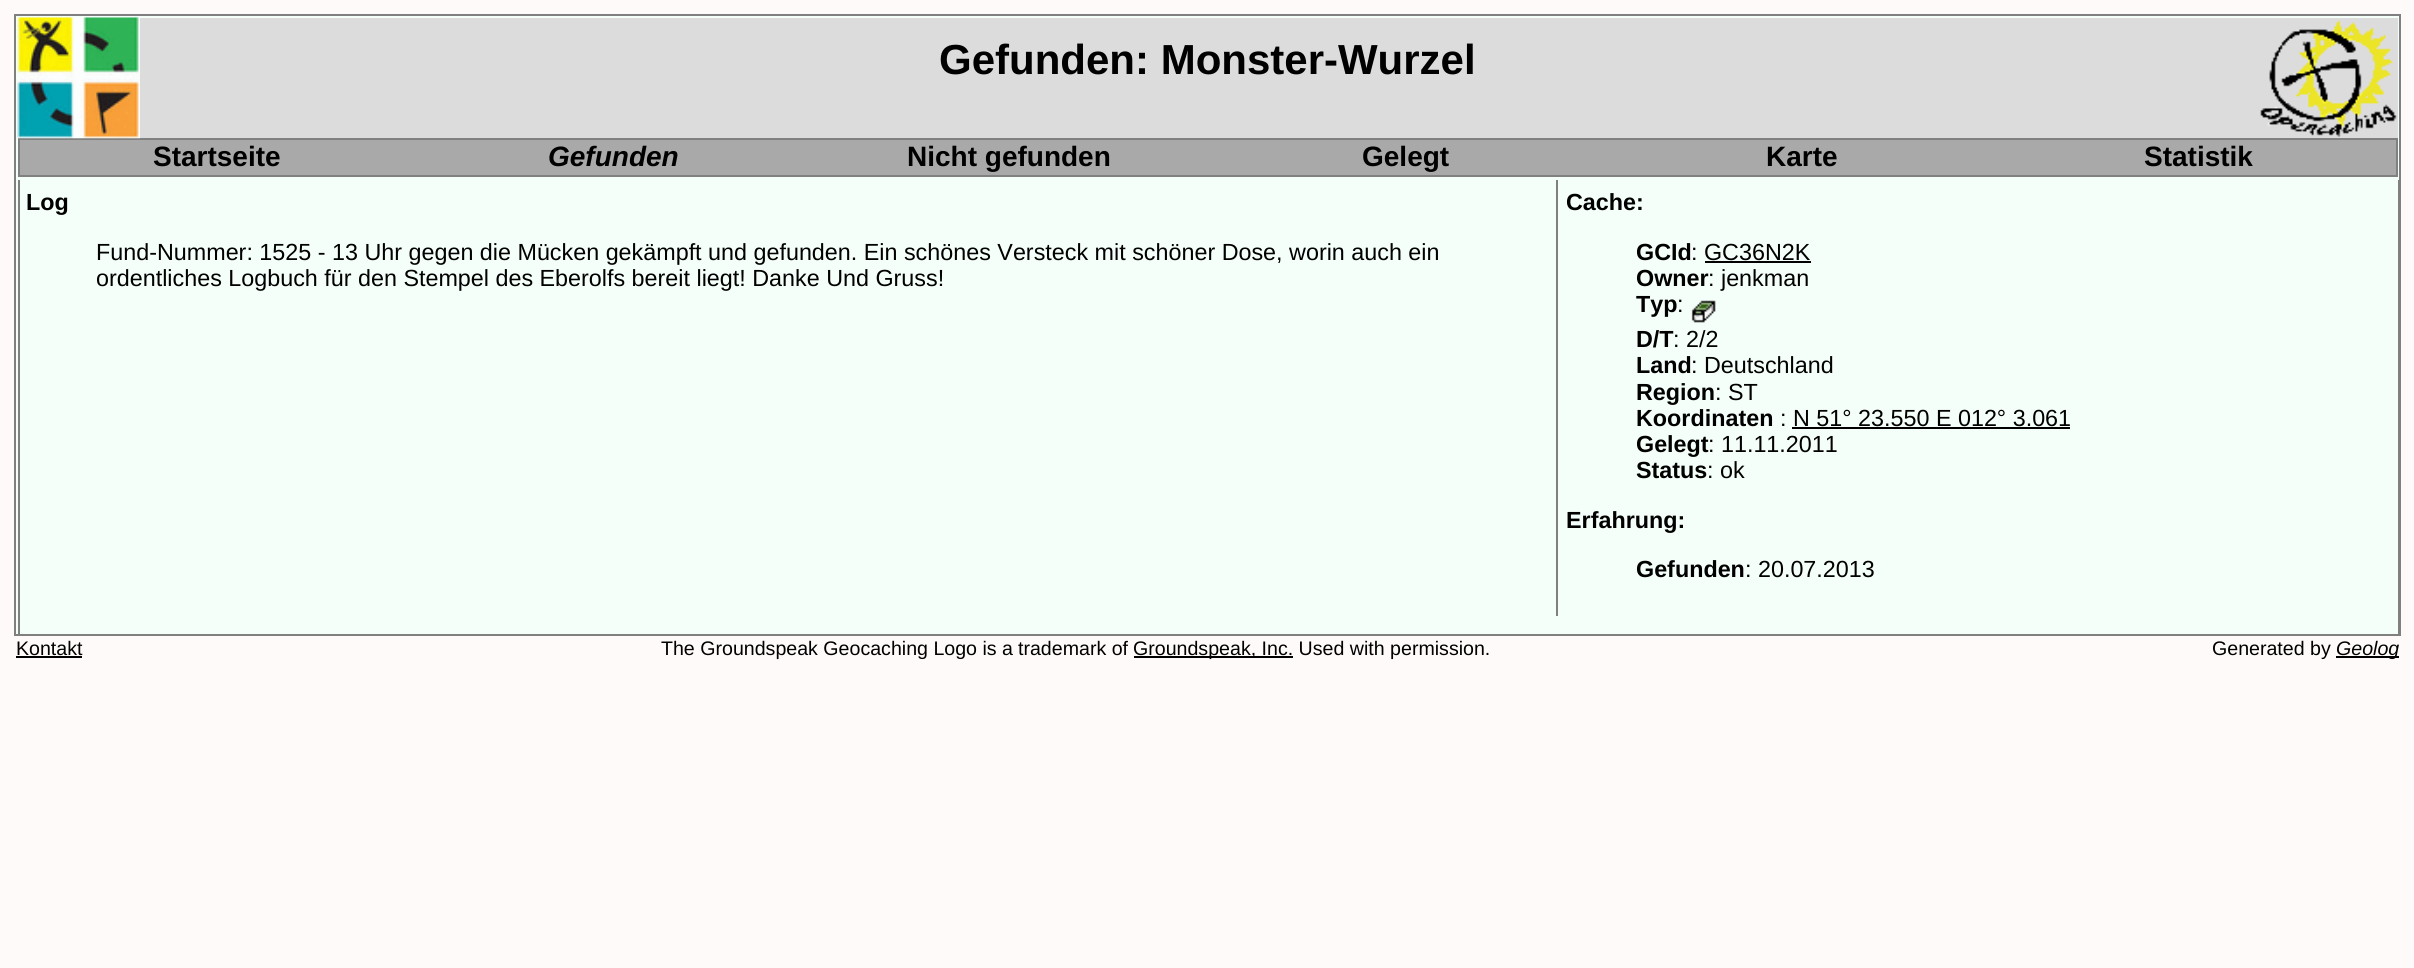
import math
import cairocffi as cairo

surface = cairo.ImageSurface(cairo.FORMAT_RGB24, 2414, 968)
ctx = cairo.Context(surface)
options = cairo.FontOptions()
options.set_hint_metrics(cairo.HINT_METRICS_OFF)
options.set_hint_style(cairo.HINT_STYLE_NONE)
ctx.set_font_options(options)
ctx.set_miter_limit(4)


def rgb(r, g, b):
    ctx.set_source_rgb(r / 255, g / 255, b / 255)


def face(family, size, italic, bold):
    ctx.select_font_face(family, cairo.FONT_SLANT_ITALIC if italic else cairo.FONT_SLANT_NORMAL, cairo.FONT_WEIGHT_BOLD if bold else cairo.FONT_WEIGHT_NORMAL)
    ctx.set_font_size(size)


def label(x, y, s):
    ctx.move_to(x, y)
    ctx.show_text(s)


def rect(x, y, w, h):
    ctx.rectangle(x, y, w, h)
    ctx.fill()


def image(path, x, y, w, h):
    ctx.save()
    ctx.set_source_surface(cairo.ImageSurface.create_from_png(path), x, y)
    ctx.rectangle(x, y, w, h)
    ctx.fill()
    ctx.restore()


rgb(255, 250, 250)
ctx.paint()
rgb(245, 255, 250)
rect(16, 16, 2383, 618)
rgb(128, 128, 128)
rect(14, 14, 2387, 2)
rect(2399, 14, 2, 621)
rect(14, 634, 2387, 2)
rect(14, 14, 2, 621)
rgb(220, 220, 220)
rect(140, 18, 2258, 120)
rgb(128, 128, 128)
rect(18, 138, 2380, 2)
rect(2396, 138, 2, 39)
rect(18, 175, 2380, 2)
rect(18, 138, 2, 39)
image('image0.png', 17, 17, 123, 122)
face('Liberation Sans', 42, 0, 1)
rgb(0, 0, 0)
label(939, 74, 'Gefunden: Monster-Wurzel')
image('image1.png', 2260, 20, 137, 117)
rgb(169, 169, 169)
rect(20, 140, 2376, 35)
face('Liberation Sans', 28, 0, 1)
rgb(0, 0, 0)
label(153, 166, 'Startseite')
face('Liberation Sans', 28, 1, 1)
label(548, 166, 'Gefunden')
face('Liberation Sans', 28, 0, 1)
label(907, 166, 'Nicht gefunden')
label(1362, 166, 'Gelegt')
label(1766, 166, 'Karte')
label(2144, 166, 'Statistik')
rgb(128, 128, 128)
rect(2398, 180, 1, 454)
rect(18, 180, 2, 454)
face('Liberation Sans', 23.33, 0, 1)
rgb(0, 0, 0)
label(26, 210, 'Log')
face('Liberation Sans', 23.33, 0, 0)
label(96, 260, 'Fund-Nummer: 1525 - 13 Uhr gegen die Mücken gekämpft und gefunden. Ein schönes Versteck mit schöner Dose, worin auch ein')
label(96, 286, 'ordentliches Logbuch für den Stempel des Eberolfs bereit liegt! Danke Und Gruss!')
rgb(128, 128, 128)
rect(1556, 180, 2, 436)
face('Liberation Sans', 23.33, 0, 1)
rgb(0, 0, 0)
label(1566, 210, 'Cache:')
label(1636, 260, 'GCId')
face('Liberation Sans', 23.33, 0, 0)
label(1691, 260, ': GC36N2K')
rect(1705, 261, 106, 2)
face('Liberation Sans', 23.33, 0, 1)
label(1636, 286, 'Owner')
face('Liberation Sans', 23.33, 0, 0)
label(1708, 286, ': jenkman')
face('Liberation Sans', 23.33, 0, 1)
label(1636, 312, 'Typ')
face('Liberation Sans', 23.33, 0, 0)
label(1677, 312, ':')
image('image2.png', 1691, 300, 25, 23)
face('Liberation Sans', 23.33, 0, 1)
label(1636, 347, 'D/T')
face('Liberation Sans', 23.33, 0, 0)
label(1673, 347, ': 2/2')
face('Liberation Sans', 23.33, 0, 1)
label(1636, 373, 'Land')
face('Liberation Sans', 23.33, 0, 0)
label(1691, 373, ': Deutschland')
face('Liberation Sans', 23.33, 0, 1)
label(1636, 400, 'Region')
face('Liberation Sans', 23.33, 0, 0)
label(1715, 400, ': ST')
face('Liberation Sans', 23.33, 0, 1)
label(1636, 426, 'Koordinaten')
face('Liberation Sans', 23.33, 0, 0)
label(1780, 426, ': N 51° 23.550 E 012° 3.061')
rect(1792, 427, 278, 2)
face('Liberation Sans', 23.33, 0, 1)
label(1636, 452, 'Gelegt')
face('Liberation Sans', 23.33, 0, 0)
label(1708, 452, ': 11.11.2011')
face('Liberation Sans', 23.33, 0, 1)
label(1636, 478, 'Status')
face('Liberation Sans', 23.33, 0, 0)
label(1707, 478, ': ok')
face('Liberation Sans', 23.33, 0, 1)
label(1566, 528, 'Erfahrung:')
label(1636, 577, 'Gefunden')
face('Liberation Sans', 23.33, 0, 0)
label(1745, 577, ': 20.07.2013')
face('Liberation Sans', 19.6, 0, 0)
label(16, 655, 'Kontakt')
rect(16, 656, 66, 2)
label(661, 655, 'The Groundspeak Geocaching Logo is a')
label(1018, 655, 'trademark of')
rect(1134, 656, 159, 2)
label(1133, 655, 'Groundspeak, Inc. Used with permission.')
label(2212, 655, 'Generated by')
rect(2336, 656, 63, 2)
face('Liberation Sans', 19.6, 1, 0)
label(2336, 655, 'Geolog')
surface.write_to_png('render.png')
